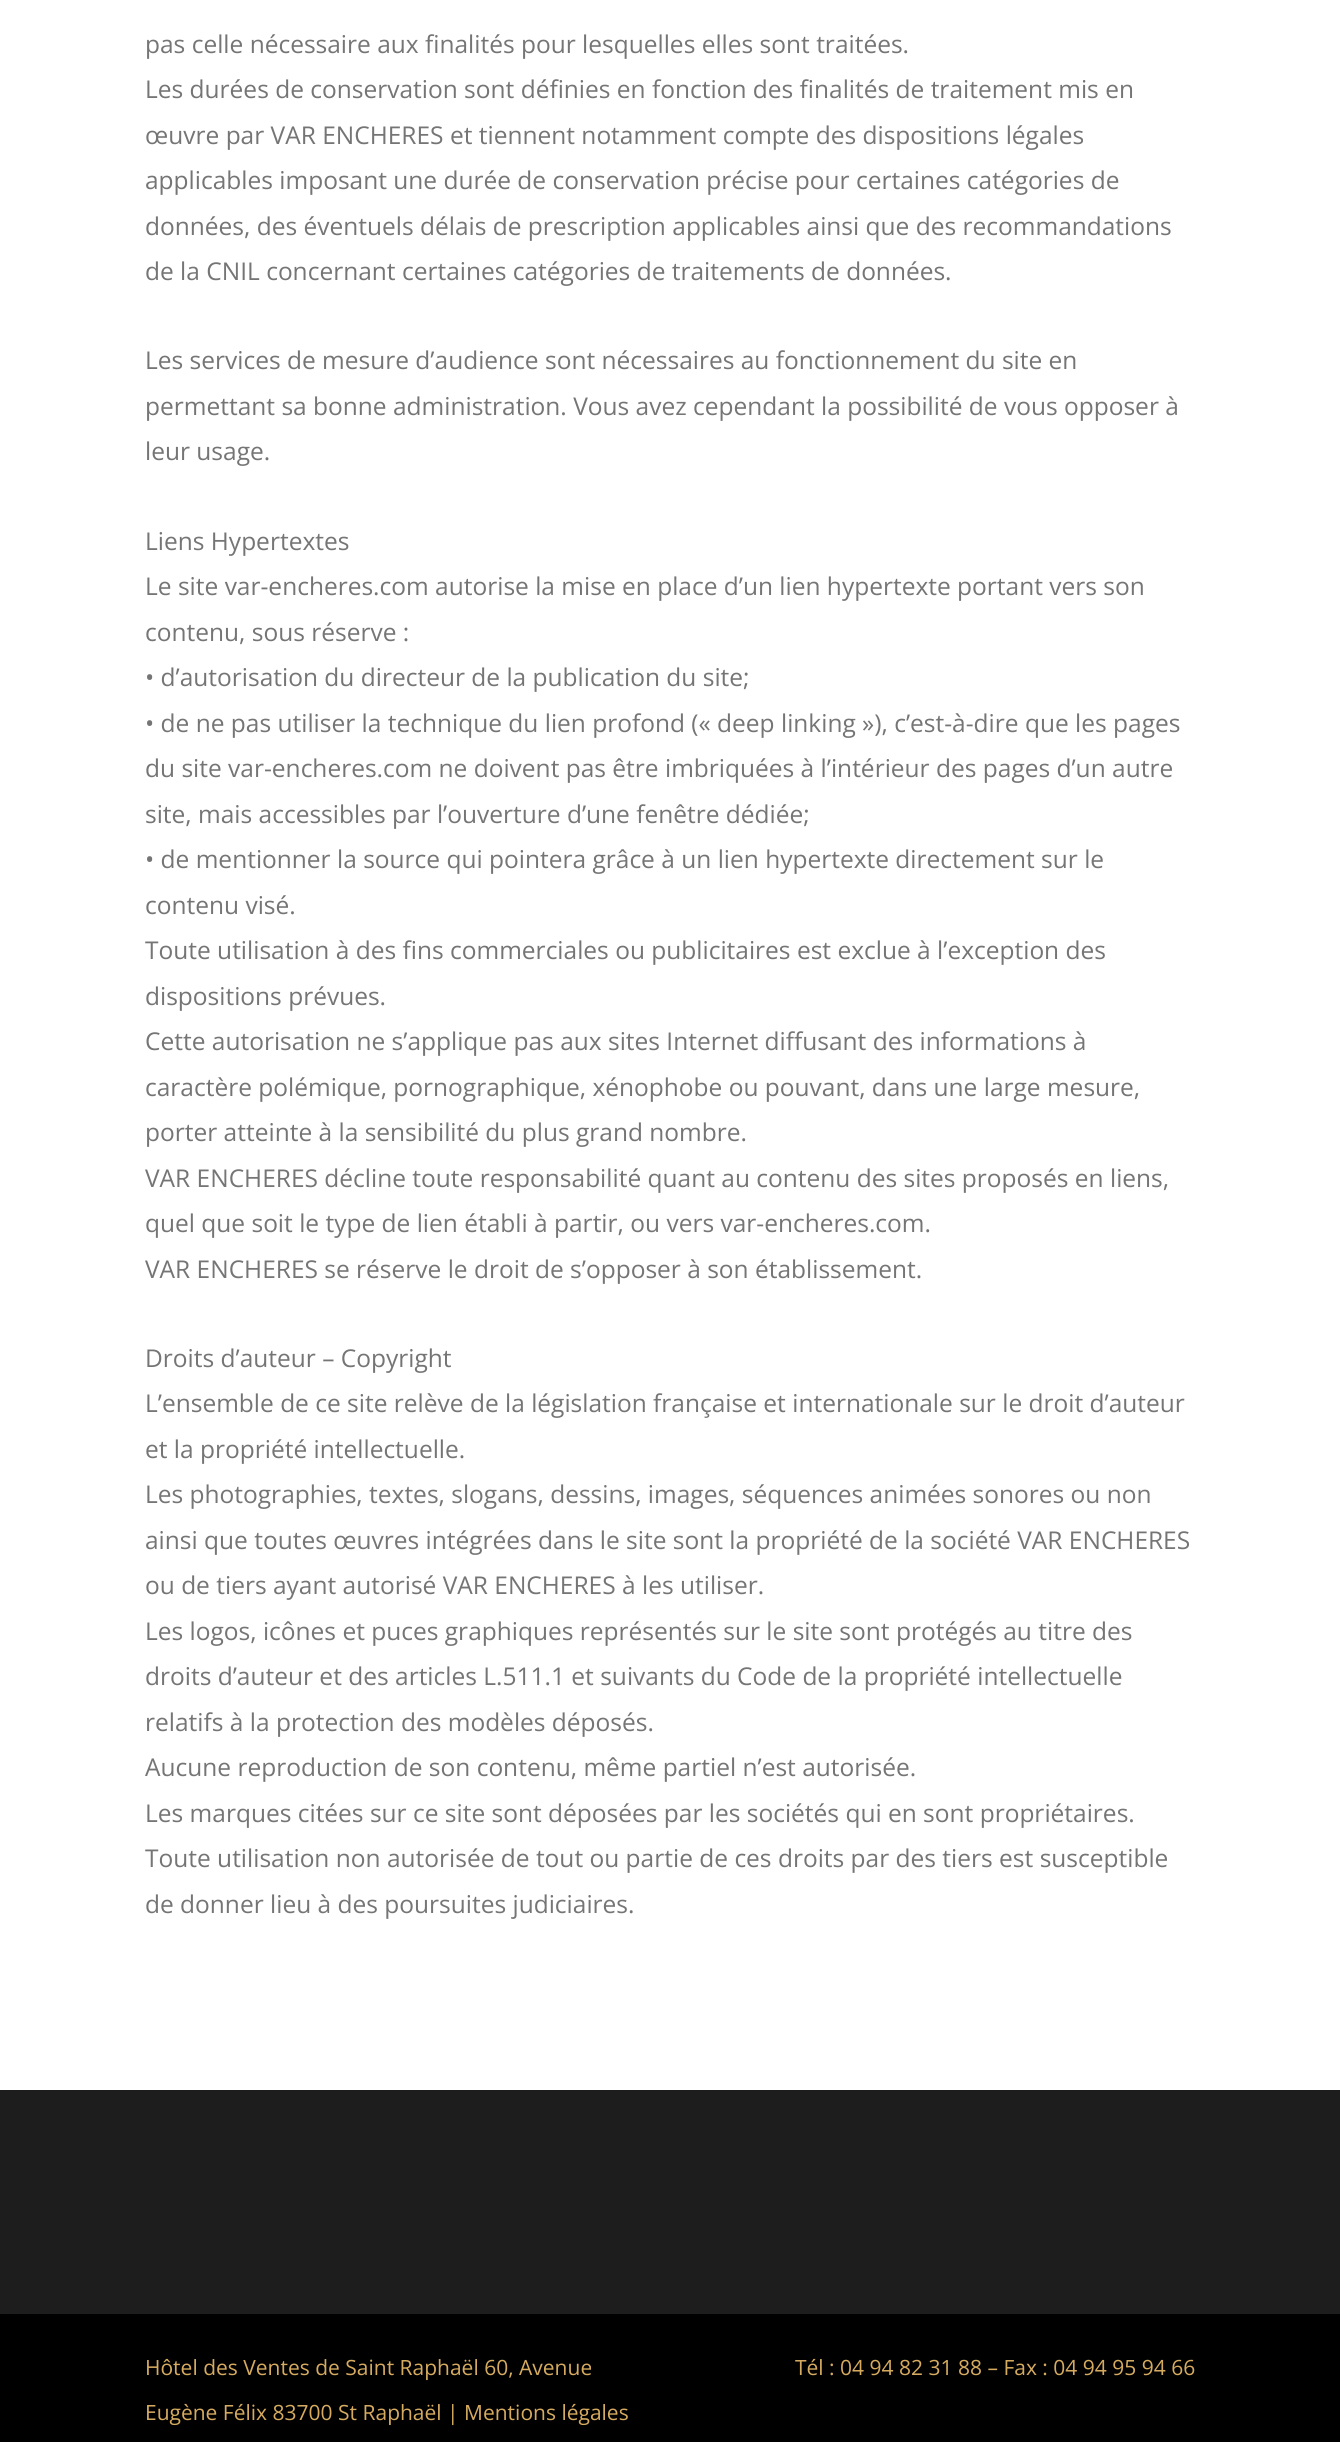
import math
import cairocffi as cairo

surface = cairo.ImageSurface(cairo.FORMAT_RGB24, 1340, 2442)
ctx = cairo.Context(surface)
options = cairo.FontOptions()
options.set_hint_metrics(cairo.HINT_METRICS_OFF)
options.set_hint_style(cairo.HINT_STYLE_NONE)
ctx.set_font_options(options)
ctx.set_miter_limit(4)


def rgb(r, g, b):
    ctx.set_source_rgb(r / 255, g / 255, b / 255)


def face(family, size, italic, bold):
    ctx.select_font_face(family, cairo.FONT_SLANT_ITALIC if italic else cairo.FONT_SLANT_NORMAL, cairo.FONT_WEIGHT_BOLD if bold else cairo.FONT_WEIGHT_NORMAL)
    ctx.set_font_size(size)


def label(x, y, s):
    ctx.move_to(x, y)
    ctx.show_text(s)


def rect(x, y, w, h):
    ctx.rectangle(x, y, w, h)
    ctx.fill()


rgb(255, 255, 255)
ctx.paint()
face('Open Sans', 24.5, 0, 0)
rgb(117, 117, 117)
label(145, 53, 'pas celle nécessaire aux finalités pour lesquelles elles sont traitées.')
label(145, 98, 'Les durées de conservation sont définies en fonction des finalités de traitement mis en')
label(145, 144, 'œuvre par VAR ENCHERES et tiennent notamment compte des dispositions légales')
label(145, 189, 'applicables imposant une durée de conservation précise pour certaines catégories de')
label(145, 235, 'données, des éventuels délais de prescription applicables ainsi que des recommandations')
label(145, 280, 'de la CNIL concernant certaines catégories de traitements de données.')
label(145, 369, 'Les services de mesure d’audience sont nécessaires au fonctionnement du site en')
label(145, 415, 'permettant sa bonne administration. Vous avez cependant la possibilité de vous opposer à')
label(145, 460, 'leur usage.')
label(145, 550, 'Liens Hypertextes')
label(145, 595, 'Le site var-encheres.com autorise la mise en place d’un lien hypertexte portant vers son')
label(145, 641, 'contenu, sous réserve :')
label(145, 686, '• d’autorisation du directeur de la publication du site;')
label(145, 732, '• de ne pas utiliser la technique du lien profond (« deep linking »), c’est-à-dire que les pages')
label(145, 777, 'du site var-encheres.com ne doivent pas être imbriquées à l’intérieur des pages d’un autre')
label(145, 823, 'site, mais accessibles par l’ouverture d’une fenêtre dédiée;')
label(145, 868, '• de mentionner la source qui pointera grâce à un lien hypertexte directement sur le')
label(145, 914, 'contenu visé.')
label(145, 959, 'Toute utilisation à des fins commerciales ou publicitaires est exclue à l’exception des')
label(145, 1005, 'dispositions prévues.')
label(145, 1050, 'Cette autorisation ne s’applique pas aux sites Internet diffusant des informations à')
label(145, 1096, 'caractère polémique, pornographique, xénophobe ou pouvant, dans une large mesure,')
label(145, 1141, 'porter atteinte à la sensibilité du plus grand nombre.')
label(145, 1187, 'VAR ENCHERES décline toute responsabilité quant au contenu des sites proposés en liens,')
label(145, 1232, 'quel que soit le type de lien établi à partir, ou vers var-encheres.com.')
label(145, 1278, 'VAR ENCHERES se réserve le droit de s’opposer à son établissement.')
label(145, 1367, 'Droits d’auteur – Copyright')
label(145, 1412, 'L’ensemble de ce site relève de la législation française et internationale sur le droit d’auteur')
label(145, 1458, 'et la propriété intellectuelle.')
label(145, 1503, 'Les photographies, textes, slogans, dessins, images, séquences animées sonores ou non')
label(145, 1549, 'ainsi que toutes œuvres intégrées dans le site sont la propriété de la société VAR ENCHERES')
label(145, 1594, 'ou de tiers ayant autorisé VAR ENCHERES à les utiliser.')
label(145, 1640, 'Les logos, icônes et puces graphiques représentés sur le site sont protégés au titre des')
label(145, 1685, 'droits d’auteur et des articles L.511.1 et suivants du Code de la propriété intellectuelle')
label(145, 1731, 'relatifs à la protection des modèles déposés.')
label(145, 1776, 'Aucune reproduction de son contenu, même partiel n’est autorisée.')
label(145, 1822, 'Les marques citées sur ce site sont déposées par les sociétés qui en sont propriétaires.')
label(145, 1867, 'Toute utilisation non autorisée de tout ou partie de ces droits par des tiers est susceptible')
label(145, 1913, 'de donner lieu à des poursuites judiciaires.')
rgb(29, 29, 29)
rect(0, 2090, 1340, 224)
rgb(0, 0, 0)
rect(0, 2314, 1340, 128)
face('Open Sans', 21, 0, 0)
rgb(214, 171, 96)
label(145, 2375, 'Hôtel des Ventes de Saint Raphaël 60, Avenue')
label(145, 2420, 'Eugène Félix 83700 St Raphaël | Mentions légales')
label(795, 2375, 'Tél : 04 94 82 31 88 – Fax : 04 94 95 94 66')
surface.write_to_png('render.png')
